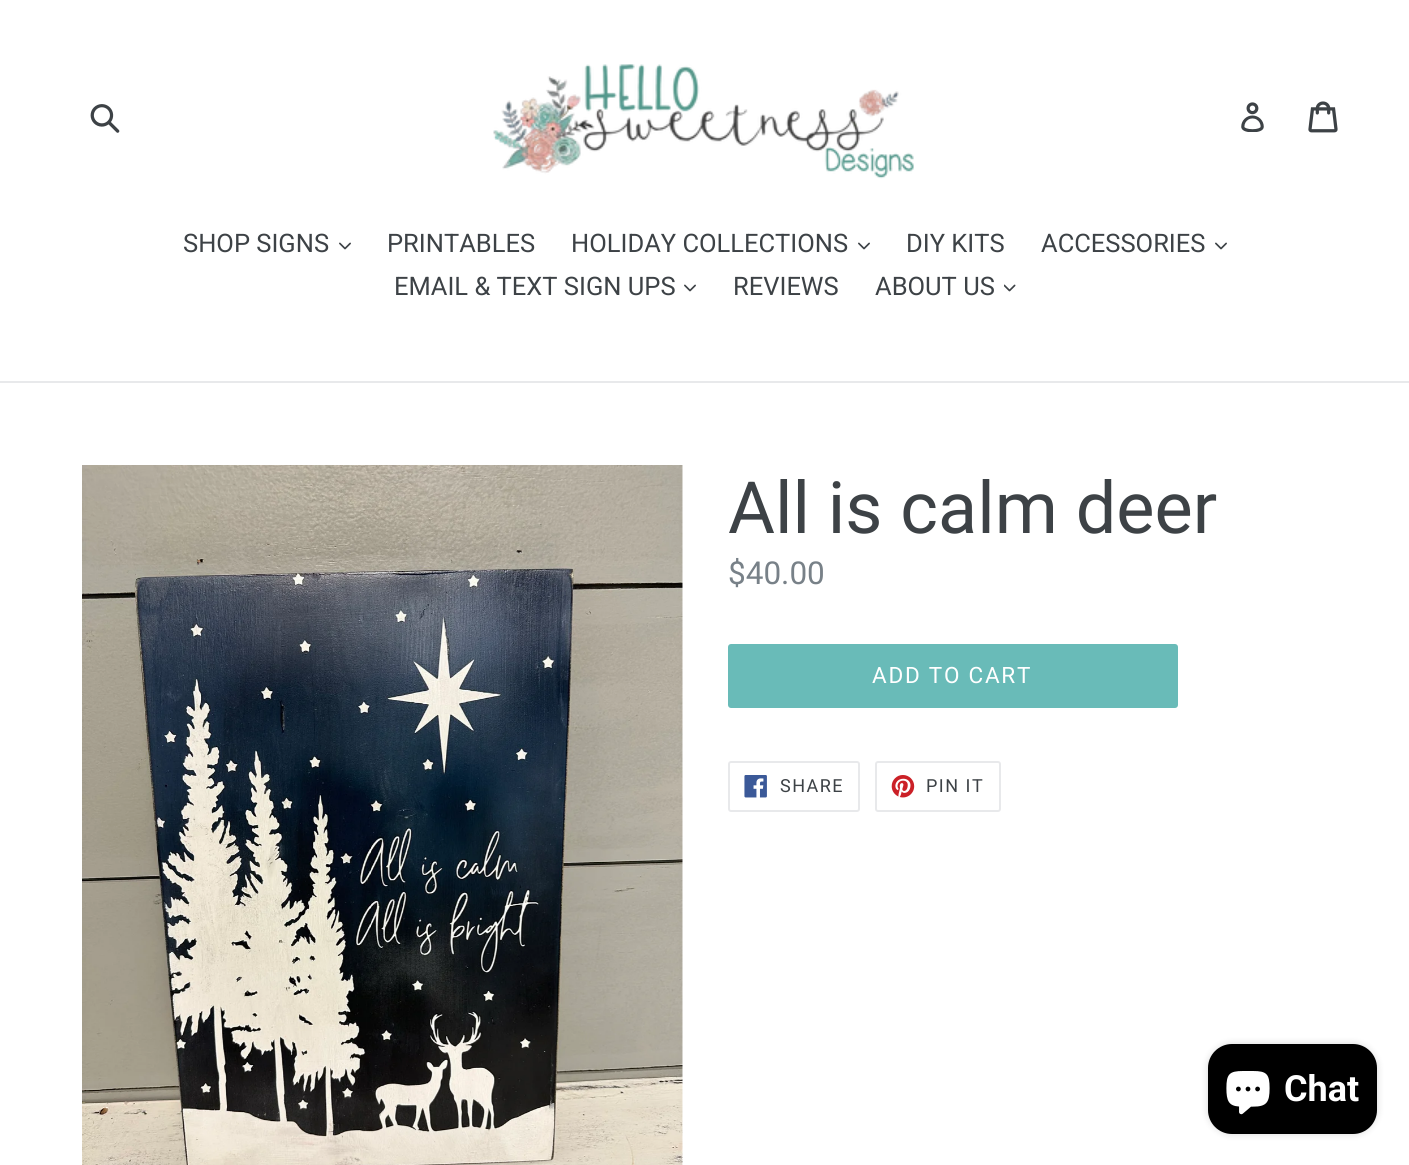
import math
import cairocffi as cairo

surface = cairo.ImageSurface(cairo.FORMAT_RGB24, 1409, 1165)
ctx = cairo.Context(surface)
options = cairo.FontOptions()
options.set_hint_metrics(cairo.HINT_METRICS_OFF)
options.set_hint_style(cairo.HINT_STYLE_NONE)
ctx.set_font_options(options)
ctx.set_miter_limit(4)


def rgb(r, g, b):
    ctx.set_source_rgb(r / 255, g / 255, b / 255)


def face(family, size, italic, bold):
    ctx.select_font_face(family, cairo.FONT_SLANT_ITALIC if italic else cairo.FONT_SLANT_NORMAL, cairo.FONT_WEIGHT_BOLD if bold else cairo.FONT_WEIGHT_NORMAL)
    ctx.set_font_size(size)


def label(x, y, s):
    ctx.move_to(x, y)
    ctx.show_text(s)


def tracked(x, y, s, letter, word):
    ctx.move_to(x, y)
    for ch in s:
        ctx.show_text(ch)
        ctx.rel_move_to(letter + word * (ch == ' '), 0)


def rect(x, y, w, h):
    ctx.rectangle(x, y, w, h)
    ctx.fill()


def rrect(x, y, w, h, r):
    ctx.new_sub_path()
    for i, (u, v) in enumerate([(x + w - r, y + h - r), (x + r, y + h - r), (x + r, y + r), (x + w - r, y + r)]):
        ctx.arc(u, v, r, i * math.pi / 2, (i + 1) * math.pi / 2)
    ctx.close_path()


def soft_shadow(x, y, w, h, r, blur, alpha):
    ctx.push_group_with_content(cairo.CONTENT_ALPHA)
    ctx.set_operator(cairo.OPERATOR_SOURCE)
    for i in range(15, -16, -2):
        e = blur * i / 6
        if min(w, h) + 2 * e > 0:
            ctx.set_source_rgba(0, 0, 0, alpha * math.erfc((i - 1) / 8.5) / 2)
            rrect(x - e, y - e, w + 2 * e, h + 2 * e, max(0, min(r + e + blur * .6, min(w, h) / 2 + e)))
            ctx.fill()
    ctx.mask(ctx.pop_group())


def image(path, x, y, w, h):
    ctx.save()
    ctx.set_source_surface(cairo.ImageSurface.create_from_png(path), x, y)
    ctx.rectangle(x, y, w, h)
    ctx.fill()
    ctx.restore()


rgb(255, 255, 255)
ctx.paint()
image('image0.png', 90, 104, 30, 29)
image('image1.png', 493, 64, 421, 115)
image('image2.png', 1241, 102, 23, 30)
image('image3.png', 1308, 101, 30, 32)
rgb(232, 233, 235)
rect(0, 381, 1409, 2)
face('Roboto', 25.5, 0, 0)
rgb(61, 66, 70)
label(183, 252, 'SHOP SIGNS')
image('image4.png', 339, 242, 12, 8)
label(387, 252, 'PRINTABLES')
label(571, 252, 'HOLIDAY COLLECTIONS')
image('image4.png', 858, 242, 12, 8)
label(906, 252, 'DIY KITS')
label(1041, 252, 'ACCESSORIES')
image('image4.png', 1215, 242, 12, 8)
label(394, 295, 'EMAIL & TEXT SIGN UPS')
image('image4.png', 684, 284, 12, 8)
label(733, 295, 'REVIEWS')
label(875, 295, 'ABOUT US')
image('image5.png', 1004, 284, 12, 8)
image('image6.png', 82, 465, 601, 700)
face('Roboto', 72, 0, 0)
label(728, 533, 'All is calm deer')
face('Roboto', 31.5, 0, 0)
rgb(120, 129, 136)
label(728, 584, '$40.00')
rgb(105, 187, 184)
rrect(728, 644, 450, 64, 3)
ctx.fill()
face('Roboto', 22.5, 0, 0)
rgb(255, 255, 255)
tracked(872, 683, 'ADD TO CART', 1.75, 0)
rrect(729, 762, 130, 49, 2)
rgb(232, 233, 235)
ctx.stroke()
image('image7.png', 744, 775, 23, 23)
face('Roboto', 18, 0, 0)
rgb(61, 66, 70)
tracked(780, 792, 'SHARE', 1.5, 0)
rrect(876, 762, 124, 49, 2)
rgb(232, 233, 235)
ctx.stroke()
image('image8.png', 891, 775, 24, 23)
rgb(61, 66, 70)
tracked(926, 792, 'PIN IT', 1.5, 0)
rgb(0, 0, 0)
soft_shadow(1208, 1044, 169, 90, 24, 4, 0.15)
rgb(0, 0, 0)
rrect(1208, 1044, 169, 90, 24)
ctx.fill()
image('image9.png', 1226, 1071, 44, 44)
face('Roboto', 36, 0, 1)
rgb(255, 255, 255)
label(1284, 1101, 'Chat')
surface.write_to_png('render.png')
